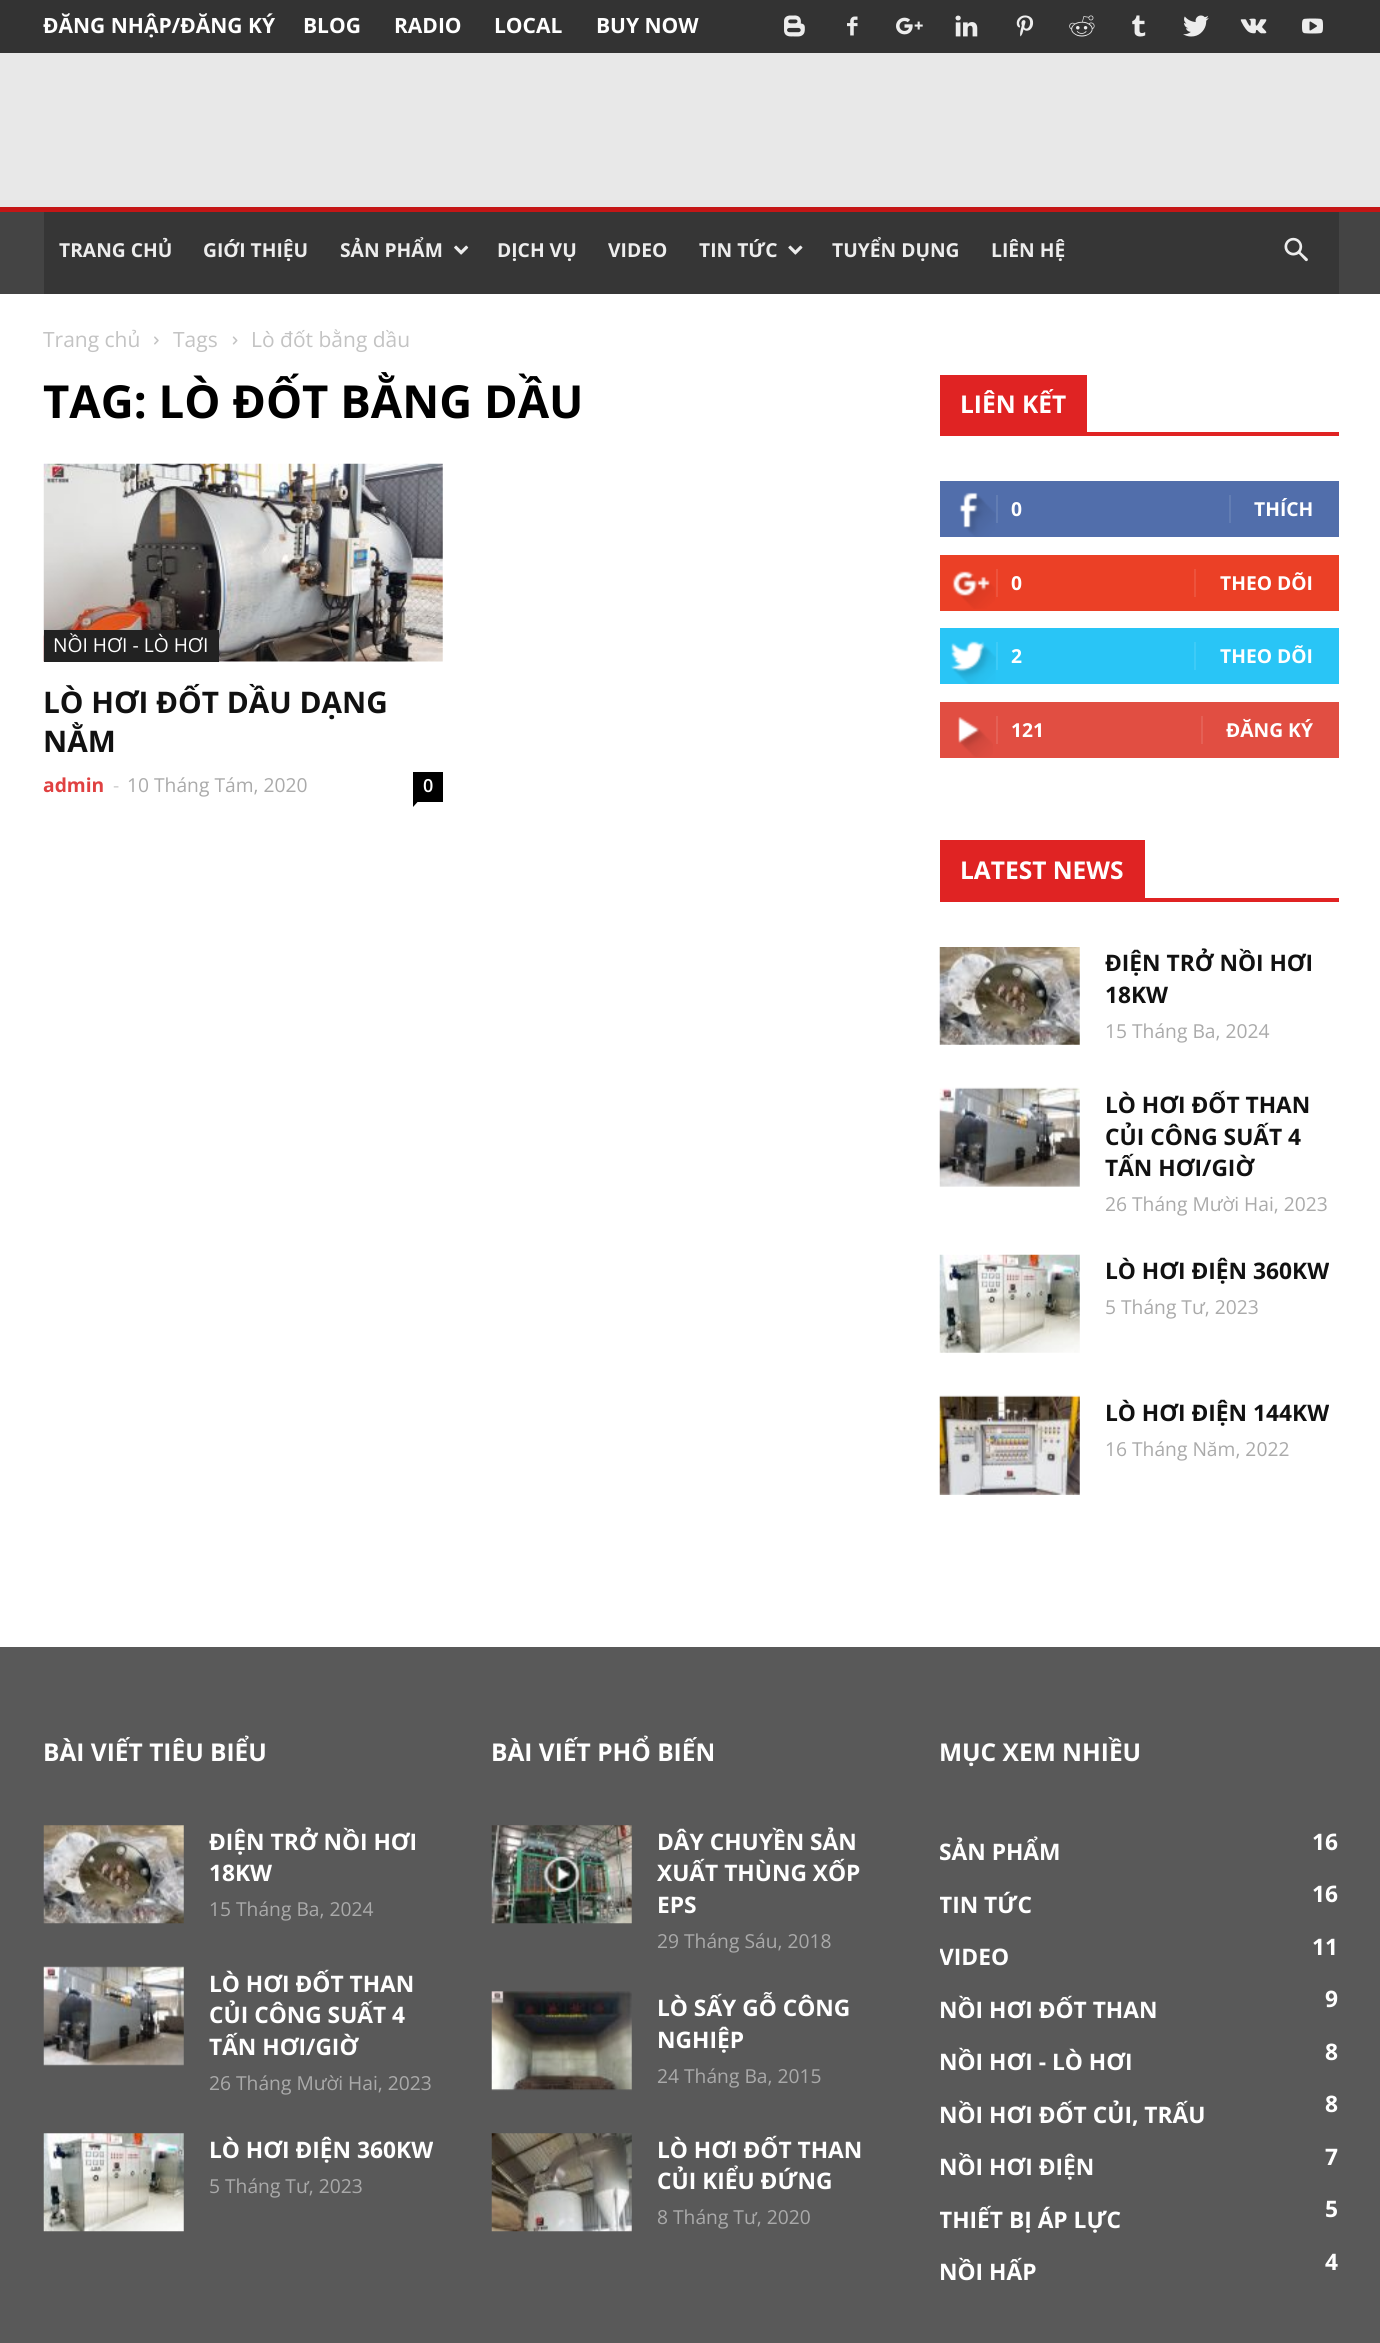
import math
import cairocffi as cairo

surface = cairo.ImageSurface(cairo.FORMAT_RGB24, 1380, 2343)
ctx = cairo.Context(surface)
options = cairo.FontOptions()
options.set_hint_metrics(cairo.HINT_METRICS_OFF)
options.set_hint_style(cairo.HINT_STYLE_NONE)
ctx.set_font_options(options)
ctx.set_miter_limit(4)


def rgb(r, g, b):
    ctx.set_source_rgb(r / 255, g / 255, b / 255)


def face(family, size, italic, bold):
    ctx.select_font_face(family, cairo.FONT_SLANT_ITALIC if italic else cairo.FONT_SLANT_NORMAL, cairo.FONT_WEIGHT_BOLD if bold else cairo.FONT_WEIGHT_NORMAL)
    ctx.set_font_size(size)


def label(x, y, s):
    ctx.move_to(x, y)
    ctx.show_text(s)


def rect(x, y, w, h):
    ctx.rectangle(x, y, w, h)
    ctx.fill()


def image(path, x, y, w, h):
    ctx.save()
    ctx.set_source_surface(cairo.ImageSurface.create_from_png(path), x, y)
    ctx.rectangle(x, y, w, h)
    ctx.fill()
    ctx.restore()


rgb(255, 255, 255)
ctx.paint()
rgb(51, 51, 51)
rect(0, 0, 1380, 53)
face('Open Sans', 21, 0, 1)
rgb(255, 255, 255)
label(43, 33, 'ĐĂNG NHẬP/ĐĂNG KÝ')
label(303, 33, 'BLOG')
label(394, 33, 'RADIO')
label(494, 33, 'LOCAL')
label(596, 33, 'BUY NOW')
image('image0.png', 784, 15, 21, 22)
image('image1.png', 847, 16, 11, 20)
image('image2.png', 896, 17, 27, 18)
image('image3.png', 955, 15, 23, 22)
image('image4.png', 1016, 15, 18, 22)
image('image5.png', 1069, 15, 26, 22)
image('image6.png', 1132, 15, 14, 22)
image('image7.png', 1183, 15, 26, 22)
image('image8.png', 1240, 18, 27, 16)
image('image9.png', 1302, 18, 21, 16)
rgb(232, 232, 232)
rect(0, 53, 1380, 154)
rgb(68, 68, 68)
rect(0, 212, 1380, 82)
rgb(197, 22, 22)
rect(0, 207, 1380, 5)
rgb(54, 54, 54)
rect(44, 212, 1295, 82)
face('Open Sans', 19.25, 0, 1)
rgb(237, 237, 237)
label(59, 257, 'TRANG CHỦ')
label(203, 257, 'GIỚI THIỆU')
label(340, 257, 'SẢN PHẨM')
image('image10.png', 454, 245, 15, 10)
label(497, 257, 'DỊCH VỤ')
label(608, 257, 'VIDEO')
label(699, 257, 'TIN TỨC')
image('image11.png', 788, 245, 15, 10)
label(832, 257, 'TUYỂN DỤNG')
label(991, 257, 'LIÊN HỆ')
image('image12.png', 1284, 237, 24, 25)
face('Open Sans', 21, 0, 0)
rgb(195, 195, 195)
label(43, 347, 'Trang chủ')
image('image13.png', 154, 336, 5, 9)
label(173, 347, 'Tags')
image('image14.png', 232, 336, 6, 9)
label(251, 347, 'Lò đốt bằng dầu')
face('Open Sans', 45.5, 0, 1)
rgb(0, 0, 0)
label(43, 418, 'TAG: LÒ ĐỐT BẰNG DẦU')
image('image15.png', 43, 463, 400, 199)
rgb(34, 34, 34)
rect(44, 630, 175, 32)
face('Open Sans', 19.25, 0, 0)
rgb(255, 255, 255)
label(53, 652, 'NỒI HƠI - LÒ HƠI')
face('Open Sans', 29.75, 0, 1)
rgb(17, 17, 17)
label(43, 713, 'LÒ HƠI ĐỐT DẦU DẠNG')
label(43, 752, 'NẰM')
face('Open Sans', 19.25, 0, 1)
rgb(224, 65, 65)
label(43, 792, 'admin')
face('Open Sans', 19.25, 0, 0)
rgb(204, 204, 204)
label(113, 792, '-')
rgb(170, 170, 170)
label(127, 792, '10 Tháng Tám, 2020')
rgb(0, 0, 0)
rect(413, 772, 30, 30)
face('Open Sans SemiBold', 18, 0, 0)
rgb(255, 255, 255)
label(423, 792, '0')
rgb(0, 0, 0)
ctx.new_path()
ctx.move_to(413, 801.5)
ctx.line_to(418, 801.5)
ctx.line_to(413, 807)
ctx.close_path()
ctx.fill()
rgb(224, 35, 35)
rect(940, 432, 399, 4)
rect(940, 375, 147, 57)
face('Open Sans', 24.5, 0, 1)
rgb(255, 255, 255)
label(960, 413, 'LIÊN KẾT')
rgb(81, 110, 171)
rect(940, 481, 399, 56)
image('image16.png', 959, 492, 37, 45)
rgb(98, 125, 179)
rect(996, 495, 2, 28)
face('Open Sans', 19.25, 0, 1)
rgb(255, 255, 255)
label(1011, 516, '0')
rgb(98, 125, 179)
rect(1229, 495, 2, 28)
rgb(255, 255, 255)
label(1254, 516, 'THÍCH')
rgb(235, 64, 38)
rect(940, 555, 399, 56)
image('image17.png', 952, 571, 43, 38)
rgb(237, 83, 60)
rect(996, 569, 2, 28)
rgb(255, 255, 255)
label(1011, 590, '0')
rgb(237, 83, 60)
rect(1194, 569, 2, 28)
rgb(255, 255, 255)
label(1220, 590, 'THEO DÕI')
rgb(41, 197, 246)
rect(940, 628, 399, 56)
image('image18.png', 950, 641, 46, 43)
rgb(62, 203, 247)
rect(996, 642, 2, 28)
rgb(255, 255, 255)
label(1011, 663, '2')
rgb(62, 203, 247)
rect(1194, 642, 2, 28)
rgb(255, 255, 255)
label(1220, 663, 'THEO DÕI')
rgb(225, 78, 66)
rect(940, 702, 399, 56)
image('image19.png', 958, 717, 35, 40)
rgb(228, 96, 85)
rect(996, 716, 2, 28)
rgb(255, 255, 255)
label(1011, 737, '121')
rgb(228, 96, 85)
rect(1201, 716, 2, 28)
rgb(255, 255, 255)
label(1226, 737, 'ĐĂNG KÝ')
rgb(224, 35, 35)
rect(940, 898, 399, 4)
rect(940, 840, 205, 58)
face('Open Sans', 24.5, 0, 1)
rgb(255, 255, 255)
label(960, 879, 'LATEST NEWS')
image('image20.png', 939, 947, 141, 98)
face('Open Sans', 22.75, 0, 1)
rgb(17, 17, 17)
label(1105, 971, 'ĐIỆN TRỞ NỒI HƠI')
label(1105, 1003, '18KW')
face('Open Sans', 19.25, 0, 0)
rgb(170, 170, 170)
label(1105, 1038, '15 Tháng Ba, 2024')
image('image21.png', 939, 1087, 141, 100)
face('Open Sans', 22.75, 0, 1)
rgb(17, 17, 17)
label(1105, 1113, 'LÒ HƠI ĐỐT THAN')
label(1105, 1145, 'CỦI CÔNG SUẤT 4')
label(1105, 1176, 'TẤN HƠI/GIỜ')
face('Open Sans', 19.25, 0, 0)
rgb(170, 170, 170)
label(1105, 1211, '26 Tháng Mười Hai, 2023')
image('image22.png', 939, 1254, 141, 99)
face('Open Sans', 22.75, 0, 1)
rgb(17, 17, 17)
label(1105, 1279, 'LÒ HƠI ĐIỆN 360KW')
face('Open Sans', 19.25, 0, 0)
rgb(170, 170, 170)
label(1105, 1314, '5 Tháng Tư, 2023')
image('image23.png', 939, 1395, 141, 100)
face('Open Sans', 22.75, 0, 1)
rgb(17, 17, 17)
label(1105, 1421, 'LÒ HƠI ĐIỆN 144KW')
face('Open Sans', 19.25, 0, 0)
rgb(170, 170, 170)
label(1105, 1456, '16 Tháng Năm, 2022')
rgb(89, 89, 89)
rect(0, 1647, 1380, 696)
face('Open Sans', 24.5, 0, 1)
rgb(255, 255, 255)
label(43, 1761, 'BÀI VIẾT TIÊU BIỂU')
image('image24.png', 43, 1825, 141, 99)
face('Open Sans', 22.75, 0, 1)
label(209, 1850, 'ĐIỆN TRỞ NỒI HƠI')
label(209, 1881, '18KW')
face('Open Sans', 19.25, 0, 0)
rgb(170, 170, 170)
label(209, 1916, '15 Tháng Ba, 2024')
image('image25.png', 43, 1966, 141, 100)
face('Open Sans', 22.75, 0, 1)
rgb(255, 255, 255)
label(209, 1992, 'LÒ HƠI ĐỐT THAN')
label(209, 2023, 'CỦI CÔNG SUẤT 4')
label(209, 2055, 'TẤN HƠI/GIỜ')
face('Open Sans', 19.25, 0, 0)
rgb(170, 170, 170)
label(209, 2090, '26 Tháng Mười Hai, 2023')
image('image26.png', 43, 2133, 141, 99)
face('Open Sans', 22.75, 0, 1)
rgb(255, 255, 255)
label(209, 2158, 'LÒ HƠI ĐIỆN 360KW')
face('Open Sans', 19.25, 0, 0)
rgb(170, 170, 170)
label(209, 2193, '5 Tháng Tư, 2023')
face('Open Sans', 24.5, 0, 1)
rgb(255, 255, 255)
label(491, 1761, 'BÀI VIẾT PHỔ BIẾN')
image('image27.png', 491, 1825, 141, 99)
image('image28.png', 543, 1856, 37, 36)
face('Open Sans', 22.75, 0, 1)
label(657, 1850, 'DÂY CHUYỀN SẢN')
label(657, 1881, 'XUẤT THÙNG XỐP')
label(657, 1913, 'EPS')
face('Open Sans', 19.25, 0, 0)
rgb(170, 170, 170)
label(657, 1948, '29 Tháng Sáu, 2018')
image('image29.png', 491, 1991, 141, 100)
face('Open Sans', 22.75, 0, 1)
rgb(255, 255, 255)
label(657, 2016, 'LÒ SẤY GỖ CÔNG')
label(657, 2048, 'NGHIỆP')
face('Open Sans', 19.25, 0, 0)
rgb(170, 170, 170)
label(657, 2083, '24 Tháng Ba, 2015')
image('image30.png', 491, 2133, 141, 99)
face('Open Sans', 22.75, 0, 1)
rgb(255, 255, 255)
label(657, 2158, 'LÒ HƠI ĐỐT THAN')
label(657, 2189, 'CỦI KIỂU ĐỨNG')
face('Open Sans', 19.25, 0, 0)
rgb(170, 170, 170)
label(657, 2224, '8 Tháng Tư, 2020')
face('Open Sans', 24.5, 0, 1)
rgb(255, 255, 255)
label(939, 1761, 'MỤC XEM NHIỀU')
ctx.save()
ctx.rectangle(940, 1726, 399, 572)
ctx.clip()
face('Open Sans', 22.75, 0, 1)
label(939, 1860, 'SẢN PHẨM')
ctx.restore()
face('Open Sans', 22.75, 0, 1)
label(1312, 1850, '16')
ctx.save()
ctx.rectangle(940, 1726, 399, 572)
ctx.clip()
label(939, 1913, 'TIN TỨC')
ctx.restore()
label(1312, 1902, '16')
ctx.save()
ctx.rectangle(940, 1726, 399, 572)
ctx.clip()
label(939, 1965, 'VIDEO')
ctx.restore()
label(1312, 1955, '11')
label(939, 2018, 'NỒI HƠI ĐỐT THAN')
label(1325, 2007, '9')
label(939, 2070, 'NỒI HƠI - LÒ HƠI')
label(1325, 2060, '8')
label(939, 2123, 'NỒI HƠI ĐỐT CỦI, TRẤU')
label(1325, 2112, '8')
label(939, 2175, 'NỒI HƠI ĐIỆN')
label(1325, 2165, '7')
ctx.save()
ctx.rectangle(940, 1726, 399, 572)
ctx.clip()
label(939, 2228, 'THIẾT BỊ ÁP LỰC')
ctx.restore()
label(1325, 2217, '5')
label(939, 2280, 'NỒI HẤP')
label(1325, 2270, '4')
surface.write_to_png('render.png')
